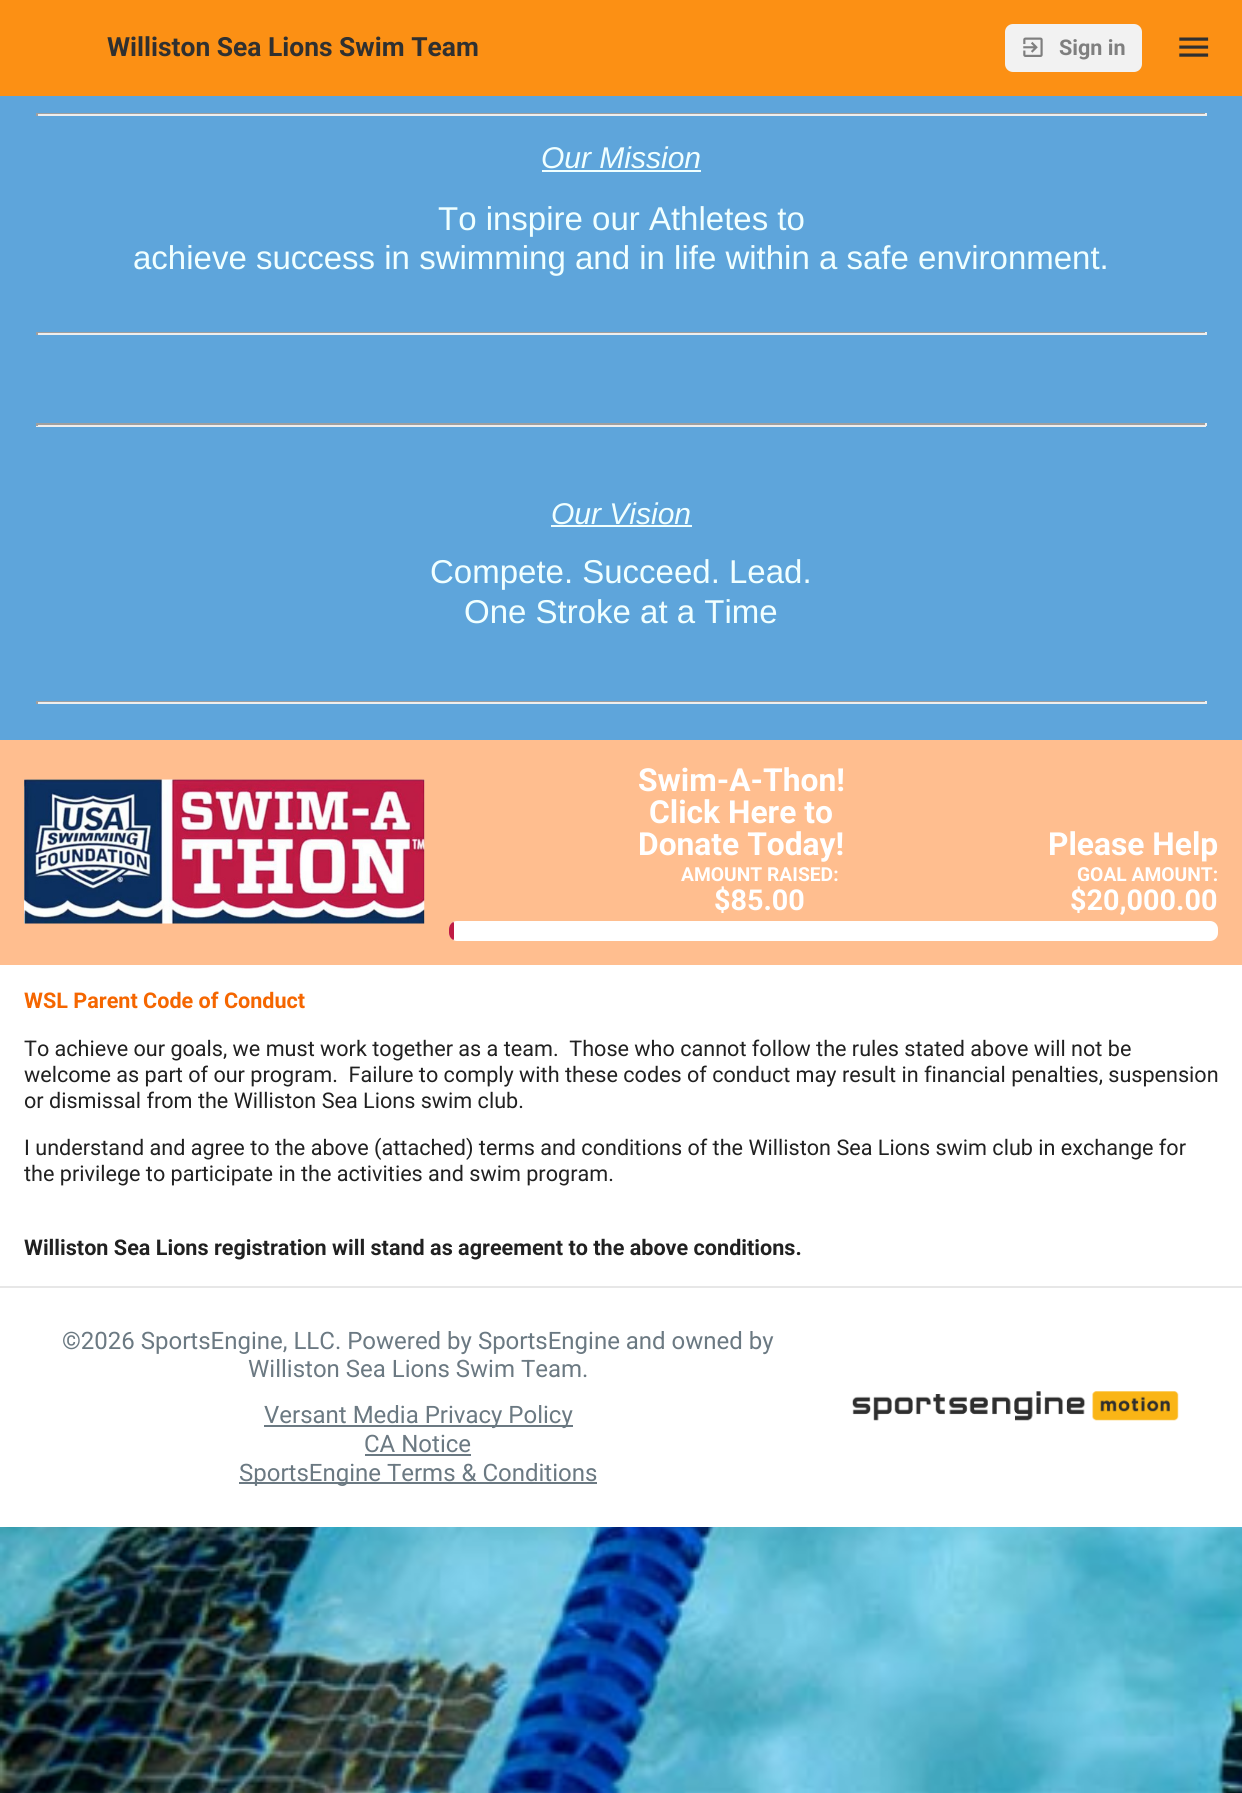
import math
import cairocffi as cairo

surface = cairo.ImageSurface(cairo.FORMAT_RGB24, 1242, 1793)
ctx = cairo.Context(surface)
options = cairo.FontOptions()
options.set_hint_metrics(cairo.HINT_METRICS_OFF)
options.set_hint_style(cairo.HINT_STYLE_NONE)
ctx.set_font_options(options)
ctx.set_miter_limit(4)


def rgb(r, g, b):
    ctx.set_source_rgb(r / 255, g / 255, b / 255)


def face(family, size, italic, bold):
    ctx.select_font_face(family, cairo.FONT_SLANT_ITALIC if italic else cairo.FONT_SLANT_NORMAL, cairo.FONT_WEIGHT_BOLD if bold else cairo.FONT_WEIGHT_NORMAL)
    ctx.set_font_size(size)


def label(x, y, s):
    ctx.move_to(x, y)
    ctx.show_text(s)


def rect(x, y, w, h):
    ctx.rectangle(x, y, w, h)
    ctx.fill()


def rrect(x, y, w, h, r):
    ctx.new_sub_path()
    for i, (u, v) in enumerate([(x + w - r, y + h - r), (x + r, y + h - r), (x + r, y + r), (x + w - r, y + r)]):
        ctx.arc(u, v, r, i * math.pi / 2, (i + 1) * math.pi / 2)
    ctx.close_path()


def image(path, x, y, w, h):
    ctx.save()
    ctx.set_source_surface(cairo.ImageSurface.create_from_png(path), x, y)
    ctx.rectangle(x, y, w, h)
    ctx.fill()
    ctx.restore()


rgb(255, 255, 255)
ctx.paint()
image('image0.png', 0, 1527, 1242, 266)
rgb(252, 144, 20)
rect(0, 0, 1242, 96)
face('Roboto', 26.4, 0, 1)
rgb(48, 48, 48)
label(107, 56, 'Williston Sea Lions Swim Team')
rgb(242, 242, 242)
rrect(1005, 24, 137, 48, 8)
ctx.fill()
image('image1.png', 1023, 37, 20, 20)
face('Roboto', 21.6, 0, 1)
rgb(127, 127, 127)
label(1059, 55, 'Sign in')
image('image2.png', 1179, 37, 30, 20)
rgb(94, 165, 219)
rect(0, 96, 1242, 644)
rgb(159, 159, 159)
rect(36, 113, 1170, 1)
rgb(238, 238, 238)
rect(1205, 113, 2, 3)
rect(36, 114, 1170, 2)
rgb(159, 159, 159)
rect(36, 113, 2, 3)
face('Liberation Sans', 30, 1, 0)
rgb(240, 255, 255)
label(541, 168, 'Our Mission')
rect(542, 170, 159, 2)
face('Liberation Sans', 33, 0, 0)
label(438, 230, 'To inspire our Athletes to')
label(133, 269, 'achieve success in swimming and in life within a safe environment.')
rgb(159, 159, 159)
rect(36, 332, 1170, 1)
rgb(238, 238, 238)
rect(1205, 332, 2, 3)
rect(36, 333, 1170, 2)
rgb(159, 159, 159)
rect(36, 332, 2, 3)
rect(36, 423, 1170, 2)
rgb(238, 238, 238)
rect(1205, 423, 2, 3)
rect(36, 425, 1170, 2)
rgb(159, 159, 159)
rect(36, 423, 2, 3)
face('Liberation Sans', 30, 1, 0)
rgb(240, 255, 255)
label(551, 524, 'Our Vision')
rect(551, 525, 141, 2)
face('Liberation Sans', 33, 0, 0)
label(430, 583, 'Compete. Succeed. Lead.')
label(464, 623, 'One Stroke at a Time')
rgb(159, 159, 159)
rect(36, 701, 1170, 1)
rgb(238, 238, 238)
rect(1205, 701, 2, 3)
rect(36, 702, 1170, 2)
rgb(159, 159, 159)
rect(36, 701, 2, 3)
rgb(255, 190, 143)
rect(0, 740, 1242, 225)
image('image3.png', 24, 779, 401, 145)
face('Roboto', 31.75, 0, 1)
rgb(255, 255, 255)
label(638, 791, 'Swim-A-Thon!')
label(649, 823, 'Click Here to')
label(638, 855, 'Donate Today!')
label(1048, 855, 'Please Help')
face('Roboto', 19.25, 0, 1)
label(681, 881, 'AMOUNT RAISED:')
face('Roboto', 28.75, 0, 1)
label(714, 910, '$85.00')
face('Roboto', 19.25, 0, 1)
label(1077, 881, 'GOAL AMOUNT:')
face('Roboto', 28.75, 0, 1)
label(1070, 910, '$20,000.00')
rrect(449, 921, 769, 20, 8)
ctx.fill()
ctx.save()
rrect(449, 921, 769, 20, 8)
ctx.clip()
rgb(191, 27, 68)
rrect(449, 921, 5, 20, 2.5)
ctx.fill()
ctx.restore()
face('Roboto', 21.6, 0, 1)
rgb(245, 102, 0)
label(24, 1008, 'WSL Parent Code of Conduct')
face('Roboto', 21.6, 0, 0)
rgb(33, 33, 33)
label(24, 1056, 'To achieve our goals, we must work together as a team.  Those who cannot follow the rules stated above will not be')
label(24, 1082, 'welcome as part of our program.  Failure to comply with these codes of conduct may result in financial penalties, suspension')
label(24, 1108, 'or dismissal from the Williston Sea Lions swim club.')
label(24, 1155, 'I understand and agree to the above (attached) terms and conditions of the Williston Sea Lions swim club in exchange for')
label(24, 1181, 'the privilege to participate in the activities and swim program.')
face('Roboto', 21.6, 0, 1)
label(24, 1255, 'Williston Sea Lions registration will stand as agreement to the above conditions.')
rgb(231, 231, 231)
rect(0, 1286, 1242, 2)
face('Roboto', 24, 0, 0)
rgb(107, 121, 130)
label(62, 1349, '©2026 SportsEngine, LLC. Powered by SportsEngine and owned by')
label(248, 1377, 'Williston Sea Lions Swim Team.')
rect(264, 1425, 309, 2)
label(264, 1423, 'Versant Media Privacy Policy')
label(364, 1452, 'CA Notice')
rect(365, 1454, 106, 2)
rect(239, 1482, 358, 2)
label(239, 1481, 'SportsEngine Terms & Conditions')
image('image4.png', 852, 1391, 327, 30)
surface.write_to_png('render.png')
